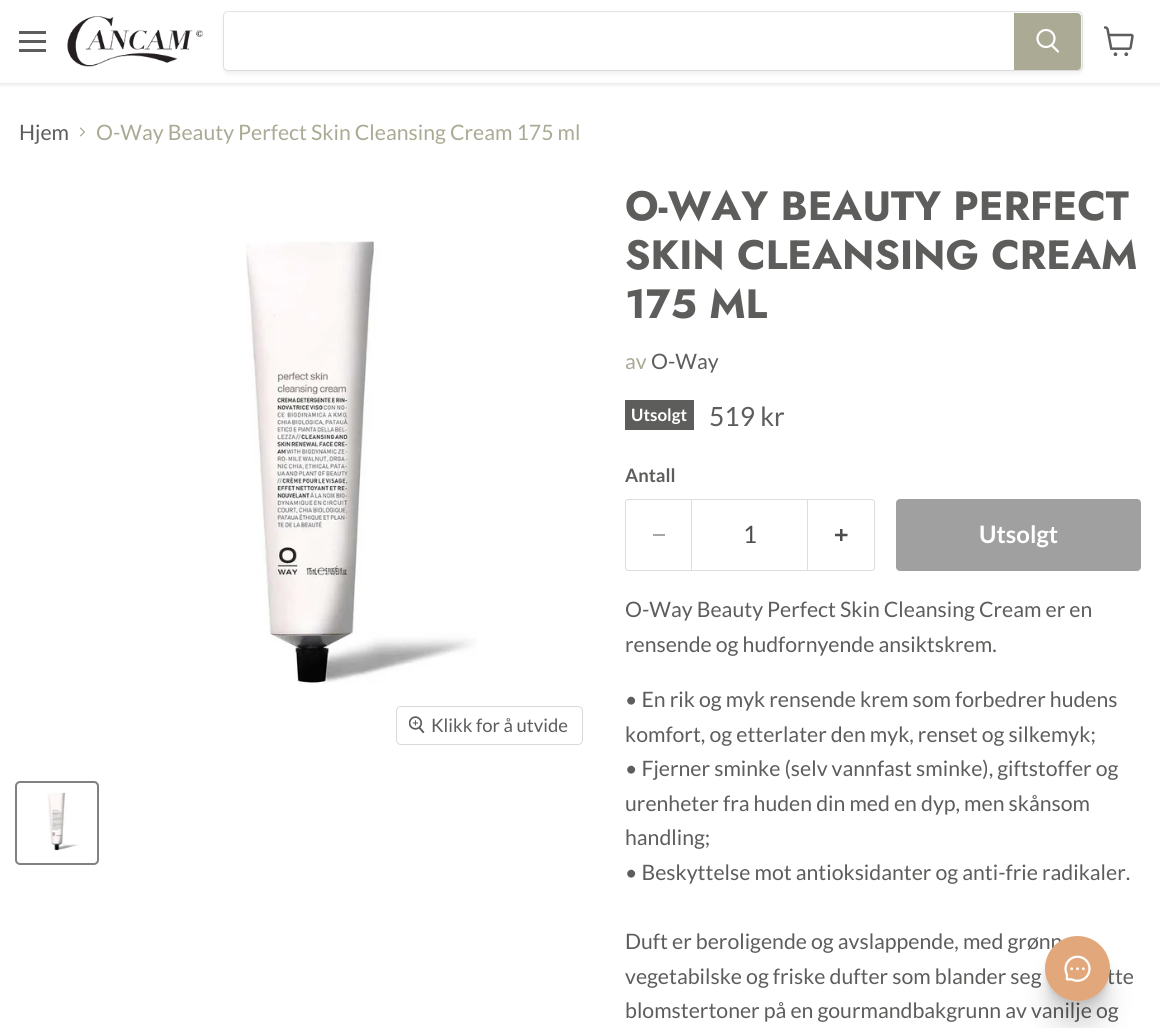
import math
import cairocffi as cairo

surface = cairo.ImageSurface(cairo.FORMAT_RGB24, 1160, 1028)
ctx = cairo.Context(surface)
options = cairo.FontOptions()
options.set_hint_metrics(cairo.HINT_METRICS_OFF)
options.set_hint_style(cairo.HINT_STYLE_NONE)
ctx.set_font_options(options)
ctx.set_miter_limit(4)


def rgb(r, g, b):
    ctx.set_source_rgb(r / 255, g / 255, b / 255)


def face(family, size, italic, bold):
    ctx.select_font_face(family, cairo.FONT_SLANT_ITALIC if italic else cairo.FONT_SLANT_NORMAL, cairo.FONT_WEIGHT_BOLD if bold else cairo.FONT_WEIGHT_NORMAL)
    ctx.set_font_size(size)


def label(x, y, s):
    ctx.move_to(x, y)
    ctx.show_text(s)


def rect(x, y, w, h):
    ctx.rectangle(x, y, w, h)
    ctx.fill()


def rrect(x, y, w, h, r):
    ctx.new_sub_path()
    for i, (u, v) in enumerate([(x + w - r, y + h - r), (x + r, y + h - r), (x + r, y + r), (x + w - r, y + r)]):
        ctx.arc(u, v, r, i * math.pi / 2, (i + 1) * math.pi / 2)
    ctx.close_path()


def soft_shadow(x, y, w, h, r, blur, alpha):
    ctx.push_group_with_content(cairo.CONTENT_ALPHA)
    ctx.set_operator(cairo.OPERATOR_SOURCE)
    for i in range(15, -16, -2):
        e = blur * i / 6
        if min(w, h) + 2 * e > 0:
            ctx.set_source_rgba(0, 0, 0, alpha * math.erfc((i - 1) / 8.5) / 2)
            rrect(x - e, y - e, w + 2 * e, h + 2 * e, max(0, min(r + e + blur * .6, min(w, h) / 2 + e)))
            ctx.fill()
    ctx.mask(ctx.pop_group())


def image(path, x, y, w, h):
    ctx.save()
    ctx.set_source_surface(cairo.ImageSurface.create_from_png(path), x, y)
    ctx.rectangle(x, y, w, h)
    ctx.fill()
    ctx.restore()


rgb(255, 255, 255)
ctx.paint()
rgb(128, 128, 128)
soft_shadow(0, 1, 1160, 83, 0, 2.5, 0.25)
rgb(255, 255, 255)
rect(0, 0, 1160, 83)
rgb(93, 93, 92)
rect(19, 31, 27, 3)
rect(19, 40, 27, 3)
rect(19, 49, 27, 3)
image('image0.png', 67, 16, 136, 51)
rgb(128, 128, 128)
soft_shadow(223, 14, 860, 60, 5, 2, 0.11)
rrect(223.5, 11.5, 859, 59, 4.5)
ctx.set_source_rgba(0.502, 0.502, 0.502, 0.2)
ctx.set_line_width(1)
ctx.stroke()
rgb(255, 255, 255)
ctx.new_path()
ctx.move_to(228, 13)
ctx.line_to(1014, 13)
ctx.line_to(1014, 70)
ctx.line_to(228, 70)
ctx.curve_to(226, 70, 224, 68, 224, 66)
ctx.line_to(224, 17)
ctx.curve_to(224, 15, 226, 13, 228, 13)
ctx.close_path()
ctx.fill()
rgb(170, 170, 149)
ctx.new_path()
ctx.move_to(1014.5, 13.5)
ctx.line_to(1077, 13.5)
ctx.curve_to(1079, 13.5, 1080.5, 15, 1080.5, 17)
ctx.line_to(1080.5, 66)
ctx.curve_to(1080.5, 68, 1079, 69.5, 1077, 69.5)
ctx.line_to(1014.5, 69.5)
ctx.close_path()
ctx.fill_preserve()
ctx.stroke()
ctx.new_path()
ctx.move_to(1058, 51.5)
ctx.line_to(1052, 45.5)
rgb(255, 255, 255)
ctx.set_line_width(2.2)
ctx.set_line_cap(cairo.LINE_CAP_ROUND)
ctx.stroke()
ctx.arc(1046, 38.5, 8.5, 0, 2 * math.pi)
ctx.set_line_cap(cairo.LINE_CAP_BUTT)
ctx.stroke()
image('image1.png', 1104, 26, 30, 30)
face('Lato', 21.25, 0, 0)
rgb(93, 93, 92)
label(19, 140, 'Hjem')
image('image2.png', 79, 127, 6, 10)
rgb(170, 170, 149)
label(96, 140, 'O-Way Beauty Perfect Skin Cleansing Cream 175 ml')
image('image3.png', 246, 241, 231, 443)
rrect(396.5, 706.5, 186, 38, 4.5)
rgb(217, 217, 217)
ctx.set_line_width(1)
ctx.stroke()
image('image4.png', 409, 716, 16, 18)
face('Lato', 18.5, 0, 0)
rgb(93, 93, 92)
label(431, 732, 'Klikk for å utvide')
rrect(16, 782, 82, 82, 4)
rgb(129, 129, 129)
ctx.set_line_width(2)
ctx.stroke()
image('image5.png', 47, 789, 32, 62)
face('Jost', 40.9, 0, 1)
rgb(93, 93, 92)
label(625, 220, 'O-WAY BEAUTY PERFECT')
label(625, 269, 'SKIN CLEANSING CREAM')
label(625, 318, '175 ML')
face('Lato', 21.25, 0, 0)
rgb(170, 170, 149)
label(625, 369, 'av')
rgb(93, 93, 92)
label(651, 369, 'O-Way')
rect(625, 400, 69, 30)
face('Lato', 17, 0, 1)
rgb(255, 255, 255)
label(631, 421, 'Utsolgt')
face('Lato', 26.5, 0, 0)
rgb(93, 93, 92)
label(709, 426, '519 kr')
face('Lato', 18.5, 0, 1)
label(625, 482, 'Antall')
rgb(221, 221, 221)
ctx.set_fill_rule(cairo.FILL_RULE_EVEN_ODD)
ctx.new_path()
ctx.move_to(629, 499)
ctx.line_to(691, 499)
ctx.line_to(691, 571)
ctx.line_to(629, 571)
ctx.curve_to(627, 571, 625, 570, 625, 568)
ctx.line_to(625, 502)
ctx.curve_to(625, 500, 627, 499, 629, 499)
ctx.close_path()
ctx.move_to(629, 500)
ctx.line_to(691, 500)
ctx.line_to(691, 570)
ctx.line_to(629, 570)
ctx.curve_to(627, 570, 626, 569, 626, 568)
ctx.line_to(626, 502)
ctx.curve_to(626, 501, 627, 500, 629, 500)
ctx.close_path()
ctx.fill()
rgb(166, 166, 166)
rect(653, 534, 12, 2)
ctx.rectangle(691.5, 499.5, 116, 71)
rgb(221, 221, 221)
ctx.set_line_width(1)
ctx.stroke()
face('Lato', 24, 0, 0)
rgb(77, 77, 77)
label(743, 543, '1')
rgb(221, 221, 221)
ctx.new_path()
ctx.move_to(808, 499)
ctx.line_to(871, 499)
ctx.curve_to(873, 499, 875, 500, 875, 502)
ctx.line_to(875, 568)
ctx.curve_to(875, 570, 873, 571, 871, 571)
ctx.line_to(808, 571)
ctx.close_path()
ctx.move_to(808, 500)
ctx.line_to(871, 500)
ctx.curve_to(873, 500, 874, 501, 874, 502)
ctx.line_to(874, 568)
ctx.curve_to(874, 569, 873, 570, 871, 570)
ctx.line_to(808, 570)
ctx.close_path()
ctx.fill()
image('image6.png', 835, 529, 13, 12)
rgb(160, 160, 160)
rrect(896.5, 499.5, 244, 71, 3.5)
ctx.fill_preserve()
ctx.stroke()
face('Lato', 24, 0, 1)
rgb(255, 255, 255)
label(979, 543, 'Utsolgt')
face('Lato', 21.25, 0, 0)
rgb(93, 93, 92)
label(625, 617, 'O-Way Beauty Perfect Skin Cleansing Cream er en')
label(625, 652, 'rensende og hudfornyende ansiktskrem.')
label(625, 707, '• En rik og myk rensende krem som forbedrer hudens')
label(625, 742, 'komfort, og etterlater den myk, renset og silkemyk;')
label(625, 776, '• Fjerner sminke (selv vannfast sminke), giftstoffer og')
label(625, 811, 'urenheter fra huden din med en dyp, men skånsom')
label(625, 845, 'handling;')
label(625, 880, '• Beskyttelse mot antioksidanter og anti-frie radikaler.')
label(625, 949, 'Duft er beroligende og avslappende, med grønn')
label(625, 984, 'vegetabilske og friske dufter som blander seg')
label(1107, 984, 'tte')
label(625, 1018, 'blomstertoner på en gourmandbakgrunn av vanilje og')
rgb(0, 0, 0)
soft_shadow(1045, 968, 65, 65, 32.5, 12.5, 0.1)
soft_shadow(1045, 953, 65, 65, 32.5, 6, 0.06)
soft_shadow(1045, 944, 65, 65, 32.5, 2.5, 0.06)
soft_shadow(1045, 939, 65, 65, 32.5, 1, 0.04)
rgb(226, 168, 123)
ctx.arc(1077.5, 968.5, 32.5, 0, 2 * math.pi)
ctx.fill()
image('image7.png', 1064, 955, 27, 27)
surface.write_to_png('render.png')
